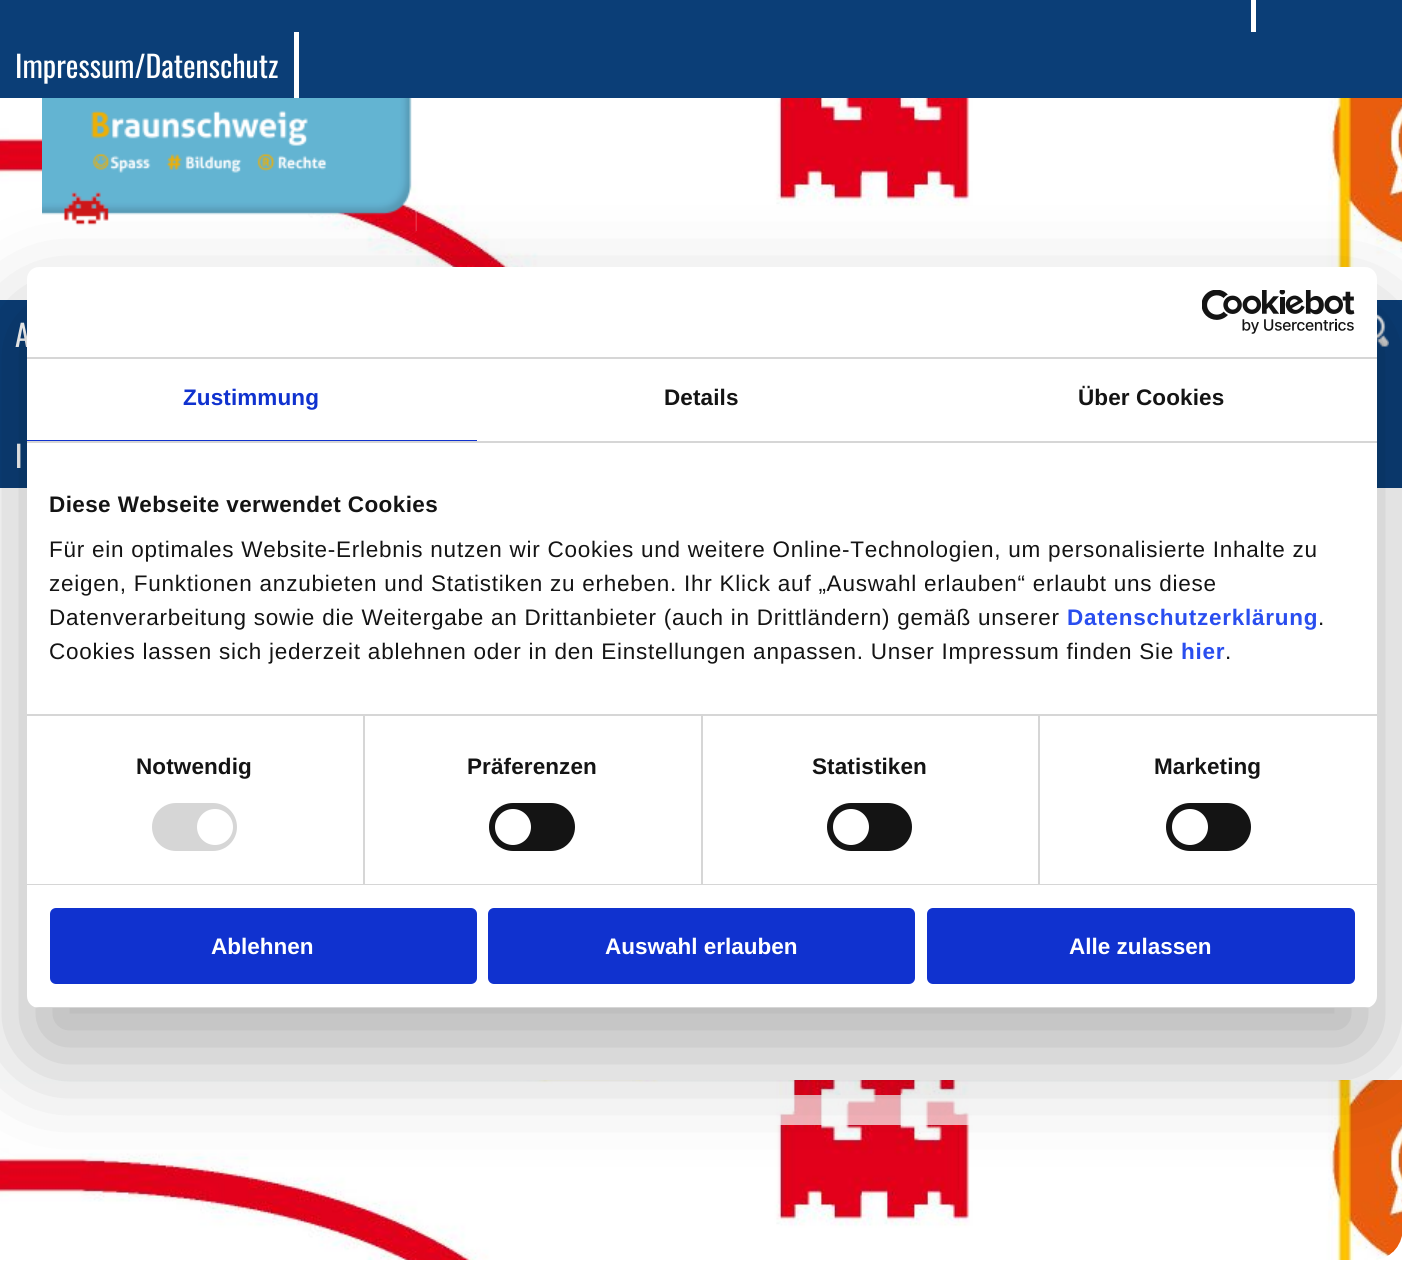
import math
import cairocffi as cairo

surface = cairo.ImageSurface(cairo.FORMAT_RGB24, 1402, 1273)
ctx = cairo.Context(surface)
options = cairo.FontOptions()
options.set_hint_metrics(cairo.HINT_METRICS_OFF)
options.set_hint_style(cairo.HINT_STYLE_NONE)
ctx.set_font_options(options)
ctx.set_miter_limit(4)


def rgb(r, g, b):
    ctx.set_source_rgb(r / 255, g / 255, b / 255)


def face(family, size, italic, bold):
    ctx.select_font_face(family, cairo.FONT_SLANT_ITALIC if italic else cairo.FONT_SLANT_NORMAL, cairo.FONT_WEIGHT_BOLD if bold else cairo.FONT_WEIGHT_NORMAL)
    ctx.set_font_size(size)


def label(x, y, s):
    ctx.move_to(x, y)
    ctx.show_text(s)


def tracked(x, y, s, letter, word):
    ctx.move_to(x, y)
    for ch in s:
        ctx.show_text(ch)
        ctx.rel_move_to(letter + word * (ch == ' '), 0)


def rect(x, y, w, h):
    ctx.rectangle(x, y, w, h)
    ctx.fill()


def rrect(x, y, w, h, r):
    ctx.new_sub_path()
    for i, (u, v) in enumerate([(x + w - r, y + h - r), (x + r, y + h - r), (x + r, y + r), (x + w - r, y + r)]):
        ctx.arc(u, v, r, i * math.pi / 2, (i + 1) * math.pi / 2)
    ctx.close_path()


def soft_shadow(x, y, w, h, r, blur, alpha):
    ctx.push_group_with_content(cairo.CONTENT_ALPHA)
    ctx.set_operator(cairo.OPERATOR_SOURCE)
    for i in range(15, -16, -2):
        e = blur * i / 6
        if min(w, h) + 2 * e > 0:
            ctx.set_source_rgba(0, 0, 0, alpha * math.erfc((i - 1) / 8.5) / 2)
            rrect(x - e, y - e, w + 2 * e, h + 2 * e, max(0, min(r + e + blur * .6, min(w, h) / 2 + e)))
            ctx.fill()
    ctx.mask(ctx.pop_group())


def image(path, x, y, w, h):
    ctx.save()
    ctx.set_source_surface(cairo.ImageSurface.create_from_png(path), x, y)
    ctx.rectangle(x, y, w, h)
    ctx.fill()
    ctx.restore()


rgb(255, 255, 255)
ctx.paint()
rgb(11, 62, 119)
rect(0, 0, 1402, 98)
rgb(255, 255, 255)
rect(1251, 0, 5, 32)
rect(294, 32, 5, 66)
face('Oswald', 30, 0, 0)
label(15, 78, 'Impressum/Datenschutz')
image('image0.png', 0, 98, 1402, 202)
image('image1.png', 42, 98, 375, 133)
rgb(11, 62, 119)
rect(0, 300, 1402, 188)
rgb(255, 255, 255)
label(15, 347, 'A')
label(15, 468, 'I')
image('image2.png', 1377, 313, 12, 34)
image('image3.png', 0, 1080, 1402, 180)
ctx.set_source_rgba(1, 1, 1, 0.7)
rrect(141, 1095, 1122, 30, 15)
ctx.fill()
rgb(0, 0, 0)
soft_shadow(27, 315, 1350, 741, 12, 51, 0.3)
rgb(255, 255, 255)
rrect(27, 267, 1350, 741, 12)
ctx.fill()
rgb(214, 214, 214)
rect(27, 357, 1350, 2)
image('image4.png', 1202, 290, 153, 44)
rect(27, 441, 1350, 2)
rgb(16, 50, 207)
rect(27, 440, 450, 1)
face('Liberation Sans', 22.5, 0, 1)
tracked(183, 405, 'Zustimmung', 0.1, 0)
rgb(20, 20, 20)
tracked(664, 405, 'Details', 0.1, 0)
tracked(1078, 405, 'Über Cookies', 0.1, 0)
rgb(214, 214, 214)
rect(27, 714, 1350, 2)
rgb(20, 20, 20)
tracked(49, 512, 'Diese Webseite verwendet Cookies', 0.4, 0)
face('Liberation Sans', 22.5, 0, 0)
tracked(49, 557, 'Für ein optimales Website-Erlebnis nutzen wir Cookies und weitere Online-Technologien, um personalisierte Inhalte zu', 0.75, 0)
tracked(49, 591, 'zeigen, Funktionen anzubieten und Statistiken zu erheben. Ihr Klick auf „Auswahl erlauben“ erlaubt uns diese', 0.75, 0)
tracked(49, 625, 'Datenverarbeitung sowie die Weitergabe an Drittanbieter (auch in Drittländern) gemäß unserer', 0.75, 0)
face('Liberation Sans', 22.5, 0, 1)
rgb(42, 78, 239)
tracked(1067, 625, 'Datenschutzerklärung', 0.75, 0)
face('Liberation Sans', 22.5, 0, 0)
rgb(20, 20, 20)
tracked(1318, 625, '.', 0.75, 0)
tracked(49, 659, 'Cookies lassen sich jederzeit ablehnen oder in den Einstellungen anpassen. Unser Impressum finden Sie', 0.75, 0)
face('Liberation Sans', 22.5, 0, 1)
rgb(42, 78, 239)
tracked(1181, 659, 'hier', 0.75, 0)
face('Liberation Sans', 22.5, 0, 0)
rgb(20, 20, 20)
tracked(1225, 659, '.', 0.75, 0)
rgb(214, 214, 214)
rect(27, 884, 1350, 1)
rect(363, 716, 2, 168)
face('Liberation Sans', 22.5, 0, 1)
rgb(20, 20, 20)
tracked(136, 774, 'Notwendig', 0.1, 0)
rgb(214, 214, 214)
rrect(152, 803, 85, 48, 24)
ctx.fill()
rgb(255, 255, 255)
ctx.arc(215, 827, 18, 0, 2 * math.pi)
ctx.fill()
rgb(214, 214, 214)
rect(701, 716, 2, 168)
rgb(20, 20, 20)
tracked(467, 774, 'Präferenzen', 0.1, 0)
rrect(489, 803, 86, 48, 24)
ctx.fill()
rgb(255, 255, 255)
ctx.arc(513, 827, 18, 0, 2 * math.pi)
ctx.fill()
rgb(214, 214, 214)
rect(1038, 716, 2, 168)
rgb(20, 20, 20)
tracked(812, 774, 'Statistiken', 0.1, 0)
rrect(827, 803, 85, 48, 24)
ctx.fill()
rgb(255, 255, 255)
ctx.arc(851, 827, 18, 0, 2 * math.pi)
ctx.fill()
rgb(20, 20, 20)
tracked(1154, 774, 'Marketing', 0.1, 0)
rrect(1166, 803, 85, 48, 24)
ctx.fill()
rgb(255, 255, 255)
ctx.arc(1190, 827, 18, 0, 2 * math.pi)
ctx.fill()
ctx.save()
rrect(27, 267, 1350, 741, 12)
ctx.clip()
rgb(214, 214, 214)
rect(27, 1007, 1350, 1)
ctx.restore()
rgb(16, 50, 207)
rrect(51.5, 909.5, 424, 73, 4.5)
ctx.fill_preserve()
ctx.set_line_width(3)
ctx.stroke()
rgb(255, 255, 255)
label(211, 954, 'Ablehnen')
rgb(16, 50, 207)
rrect(489.5, 909.5, 424, 73, 4.5)
ctx.fill_preserve()
ctx.stroke()
rgb(255, 255, 255)
label(605, 954, 'Auswahl erlauben')
rgb(16, 50, 207)
rrect(928.5, 909.5, 425, 73, 4.5)
ctx.fill_preserve()
ctx.stroke()
rgb(255, 255, 255)
label(1069, 954, 'Alle zulassen')
surface.write_to_png('render.png')
